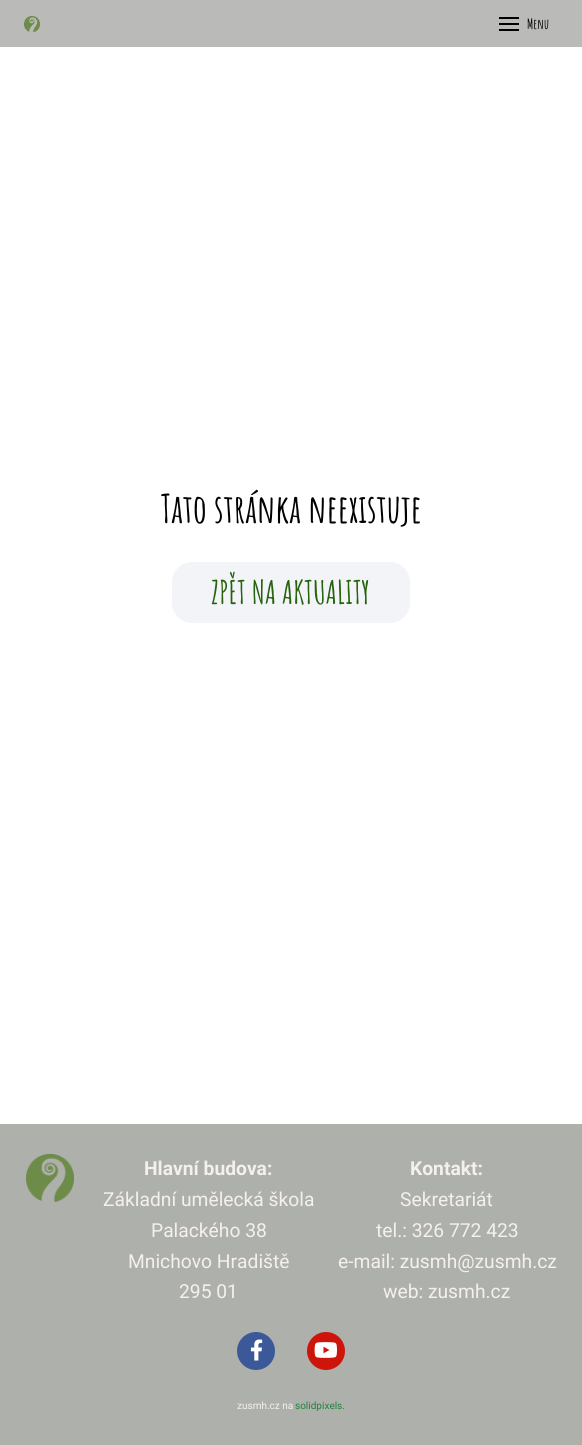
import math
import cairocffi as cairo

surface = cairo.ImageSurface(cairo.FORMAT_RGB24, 582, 1445)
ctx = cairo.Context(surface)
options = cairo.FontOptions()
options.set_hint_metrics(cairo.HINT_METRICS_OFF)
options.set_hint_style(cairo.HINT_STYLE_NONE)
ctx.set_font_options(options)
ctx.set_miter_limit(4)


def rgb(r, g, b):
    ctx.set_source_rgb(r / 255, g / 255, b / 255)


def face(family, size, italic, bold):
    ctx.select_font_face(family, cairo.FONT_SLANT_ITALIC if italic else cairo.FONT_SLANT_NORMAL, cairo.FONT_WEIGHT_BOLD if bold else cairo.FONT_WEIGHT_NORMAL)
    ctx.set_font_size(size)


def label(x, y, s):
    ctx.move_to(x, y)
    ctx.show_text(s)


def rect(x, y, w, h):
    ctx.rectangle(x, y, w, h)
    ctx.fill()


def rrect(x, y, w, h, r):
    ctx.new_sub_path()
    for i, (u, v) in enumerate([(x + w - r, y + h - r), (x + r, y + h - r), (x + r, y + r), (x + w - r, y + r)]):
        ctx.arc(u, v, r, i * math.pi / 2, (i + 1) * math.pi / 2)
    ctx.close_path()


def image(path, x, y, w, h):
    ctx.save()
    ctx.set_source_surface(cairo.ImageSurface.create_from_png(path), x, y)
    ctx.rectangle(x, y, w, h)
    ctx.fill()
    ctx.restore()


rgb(255, 255, 255)
ctx.paint()
rgb(186, 187, 184)
rect(0, 0, 582, 47)
image('image0.png', 24, 16, 16, 16)
rgb(0, 0, 0)
rect(499, 17, 20, 2)
rect(499, 23, 20, 2)
rect(499, 29, 20, 2)
face('Amatic SC', 14, 0, 1)
label(527, 29, 'Menu')
face('Amatic SC', 39, 0, 1)
label(161, 523, 'Tato stránka neexistuje')
rgb(243, 244, 248)
rrect(172.5, 562.5, 237, 60, 19.5)
ctx.fill_preserve()
ctx.set_line_width(1)
ctx.stroke()
face('Amatic SC', 32, 0, 1)
rgb(39, 98, 13)
label(211, 604, 'ZPĚT NA AKTUALITY')
rgb(174, 176, 171)
rect(0, 1124, 582, 321)
image('image1.png', 26, 1154, 48, 48)
face('Roboto', 19.25, 0, 1)
rgb(245, 240, 240)
label(144, 1175, 'Hlavní budova:')
face('Roboto', 19.25, 0, 0)
label(103, 1206, 'Základní umělecká škola')
label(151, 1237, 'Palackého 38')
label(128, 1268, 'Mnichovo Hradiště')
label(179, 1298, '295 01')
face('Roboto', 19.25, 0, 1)
label(410, 1175, 'Kontakt:')
face('Roboto', 19.25, 0, 0)
label(400, 1206, 'Sekretariát')
label(376, 1237, 'tel.: 326 772 423')
label(338, 1268, 'e-mail: zusmh@zusmh.cz')
label(383, 1298, 'web: zusmh.cz')
rgb(59, 89, 152)
ctx.new_path()
ctx.arc(256, 1351, 19, 0, 2 * math.pi)
ctx.fill()
image('image2.png', 250, 1339, 13, 22)
rgb(205, 21, 12)
ctx.arc(326, 1351, 19, 0, 2 * math.pi)
ctx.fill()
image('image3.png', 314, 1342, 23, 16)
face('Roboto', 10, 0, 0)
rgb(245, 240, 240)
label(237, 1409, 'zusmh.cz na')
rgb(34, 131, 62)
label(295, 1409, 'solidpixels.')
surface.write_to_png('render.png')
